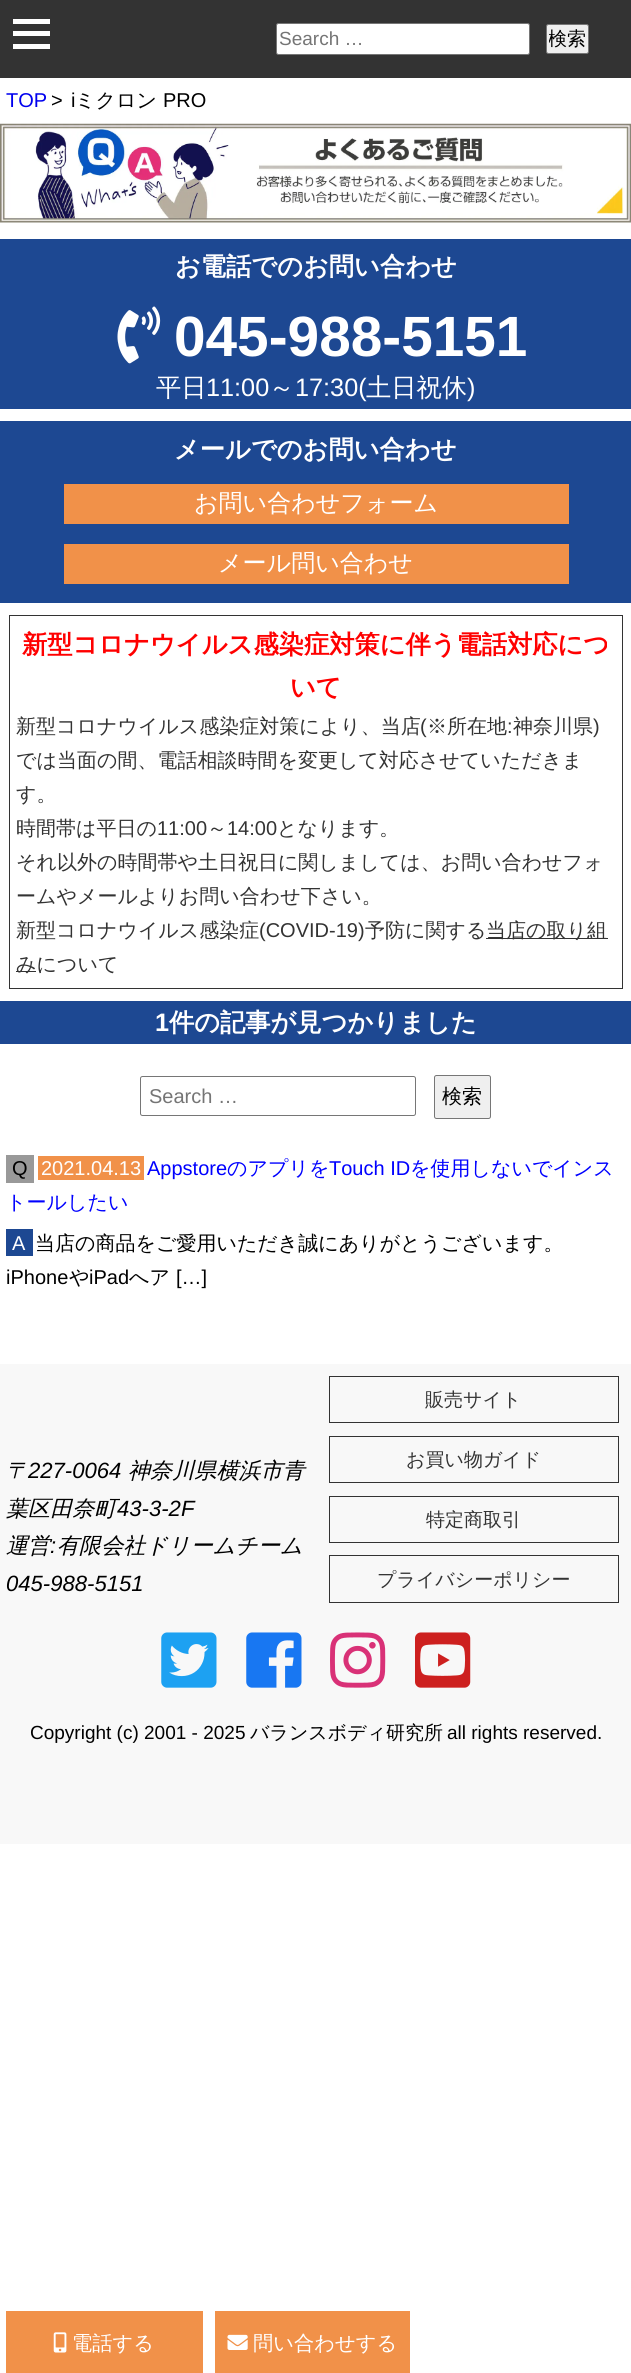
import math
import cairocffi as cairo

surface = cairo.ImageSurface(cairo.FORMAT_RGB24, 631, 2373)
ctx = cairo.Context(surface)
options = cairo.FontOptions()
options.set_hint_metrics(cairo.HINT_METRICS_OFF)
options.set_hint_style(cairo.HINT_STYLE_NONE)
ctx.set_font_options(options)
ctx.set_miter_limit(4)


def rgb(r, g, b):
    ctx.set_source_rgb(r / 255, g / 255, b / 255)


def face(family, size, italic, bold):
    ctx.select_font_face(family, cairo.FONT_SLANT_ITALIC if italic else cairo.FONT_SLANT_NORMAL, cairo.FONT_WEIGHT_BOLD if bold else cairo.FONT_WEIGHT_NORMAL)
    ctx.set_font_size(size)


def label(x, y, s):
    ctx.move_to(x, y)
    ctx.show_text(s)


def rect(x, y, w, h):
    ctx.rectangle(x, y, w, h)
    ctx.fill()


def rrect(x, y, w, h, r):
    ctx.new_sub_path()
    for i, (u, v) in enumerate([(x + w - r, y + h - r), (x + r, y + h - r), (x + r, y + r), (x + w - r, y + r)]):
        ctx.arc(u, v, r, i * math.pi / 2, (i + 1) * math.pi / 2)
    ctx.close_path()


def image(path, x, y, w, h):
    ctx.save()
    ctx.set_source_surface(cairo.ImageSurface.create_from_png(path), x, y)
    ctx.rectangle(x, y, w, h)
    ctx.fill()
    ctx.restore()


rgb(255, 255, 255)
ctx.paint()
rgb(51, 51, 51)
rect(0, 0, 631, 78)
rgb(255, 255, 255)
rect(13, 19, 37, 5)
rect(13, 31, 37, 5)
rect(13, 44, 37, 5)
rrect(276.5, 23.5, 253, 31, 2)
ctx.fill_preserve()
rgb(118, 118, 118)
ctx.set_line_width(1)
ctx.stroke()
face('Liberation Sans', 19, 0, 0)
rgb(117, 117, 117)
label(279, 45, 'Search …')
rgb(239, 239, 239)
rrect(546.5, 24.5, 42, 29, 2)
ctx.fill_preserve()
rgb(118, 118, 118)
ctx.stroke()
ctx.save()
ctx.rectangle(549, 26, 37, 25)
ctx.clip()
face('WenQuanYi Zen Hei Medium', 19, 0, 0)
rgb(0, 0, 0)
label(548, 45, '検索')
ctx.restore()
face('Liberation Sans', 20, 0, 0)
rgb(0, 0, 238)
label(6, 107, 'TOP')
rgb(0, 0, 0)
label(51, 107, '>')
label(71, 107, 'i')
face('WenQuanYi Zen Hei Medium', 20, 0, 0)
label(75, 107, 'ミクロン')
face('Liberation Sans', 20, 0, 0)
label(163, 107, 'PRO')
image('image0.png', 0, 123, 631, 100)
rgb(29, 72, 146)
rect(0, 239, 631, 170)
face('WenQuanYi Zen Hei', 25.25, 0, 1)
rgb(255, 255, 255)
label(175, 275, 'お電話でのお問い合わせ')
image('image1.png', 117, 306, 44, 58)
face('Liberation Sans', 56.75, 0, 1)
label(174, 356, '045-988-5151')
face('WenQuanYi Zen Hei Medium', 25.25, 0, 0)
label(156, 396, '平日')
face('Liberation Sans', 25.25, 0, 0)
label(206, 396, '11:00')
face('WenQuanYi Zen Hei Medium', 25.25, 0, 0)
label(269, 396, '～')
face('Liberation Sans', 25.25, 0, 0)
label(295, 396, '17:30(')
face('WenQuanYi Zen Hei Medium', 25.25, 0, 0)
label(366, 396, '土日祝休')
face('Liberation Sans', 25.25, 0, 0)
label(467, 396, ')')
rgb(29, 72, 146)
rect(0, 421, 631, 182)
face('WenQuanYi Zen Hei', 25.25, 0, 1)
rgb(255, 255, 255)
label(174, 458, 'メールでのお問い合わせ')
rgb(241, 145, 73)
rect(64, 484, 505, 40)
face('WenQuanYi Zen Hei Medium', 24, 0, 0)
rgb(255, 255, 255)
label(194, 511, 'お問い合わせフォーム')
rgb(241, 145, 73)
rect(64, 544, 505, 40)
rgb(255, 255, 255)
label(218, 571, 'メール問い合わせ')
ctx.rectangle(9.5, 615.5, 613, 373)
rgb(51, 51, 51)
ctx.stroke()
face('WenQuanYi Zen Hei', 25.25, 0, 1)
rgb(255, 0, 0)
label(22, 653, '新型コロナウイルス感染症対策に伴う電話対応につ')
label(290, 696, 'いて')
face('WenQuanYi Zen Hei Medium', 20, 0, 0)
rgb(51, 51, 51)
label(16, 733, '新型コロナウイルス感染症対策により、当店')
face('Liberation Sans', 20, 0, 0)
label(420, 733, '(')
face('WenQuanYi Zen Hei Medium', 20, 0, 0)
label(427, 733, '※所在地')
face('Liberation Sans', 20, 0, 0)
label(507, 733, ':')
face('WenQuanYi Zen Hei Medium', 20, 0, 0)
label(513, 733, '神奈川県')
face('Liberation Sans', 20, 0, 0)
label(593, 733, ')')
face('WenQuanYi Zen Hei Medium', 20, 0, 0)
label(16, 767, 'では当面の間、電話相談時間を変更して対応させていただきま')
label(16, 801, 'す。')
label(16, 835, '時間帯は平日の')
face('Liberation Sans', 20, 0, 0)
label(157, 835, '11:00')
face('WenQuanYi Zen Hei Medium', 20, 0, 0)
label(207, 835, '～')
face('Liberation Sans', 20, 0, 0)
label(227, 835, '14:00')
face('WenQuanYi Zen Hei Medium', 20, 0, 0)
label(277, 835, 'となります。')
label(16, 869, 'それ以外の時間帯や土日祝日に関しましては、お問い合わせフォ')
label(16, 903, 'ームやメールよりお問い合わせ下さい。')
label(16, 937, '新型コロナウイルス感染症')
face('Liberation Sans', 20, 0, 0)
label(259, 937, '(COVID-19)')
face('WenQuanYi Zen Hei Medium', 20, 0, 0)
label(365, 937, '予防に関する')
rect(486, 938, 122, 1)
label(486, 937, '当店の取り組')
rect(16, 971, 20, 1)
label(16, 971, 'みについて')
rgb(29, 72, 146)
rect(0, 1001, 631, 43)
face('Liberation Sans', 25.25, 0, 1)
rgb(255, 255, 255)
label(155, 1031, '1')
face('WenQuanYi Zen Hei', 25.25, 0, 1)
label(169, 1031, '件の記事が見つかりました')
rrect(140.5, 1076.5, 275, 39, 2)
rgb(118, 118, 118)
ctx.stroke()
face('Liberation Sans', 20, 0, 0)
rgb(117, 117, 117)
label(149, 1103, 'Search …')
rgb(239, 239, 239)
rrect(434.5, 1075.5, 56, 43, 2)
ctx.fill_preserve()
rgb(118, 118, 118)
ctx.stroke()
face('WenQuanYi Zen Hei Medium', 20, 0, 0)
rgb(0, 0, 0)
label(442, 1103, '検索')
rgb(153, 153, 153)
rect(6, 1155, 28, 28)
face('Liberation Sans', 20, 0, 0)
rgb(0, 0, 0)
label(12, 1175, 'Q')
rgb(241, 145, 73)
rect(38, 1156, 106, 24)
rgb(255, 255, 255)
label(41, 1175, '2021.04.13')
rgb(0, 0, 255)
label(147, 1175, 'Appstore')
face('WenQuanYi Zen Hei Medium', 20, 0, 0)
label(227, 1175, 'のアプリを')
face('Liberation Sans', 20, 0, 0)
label(329, 1175, 'Touch ID')
face('WenQuanYi Zen Hei Medium', 20, 0, 0)
label(410, 1175, 'を使用しないでインス')
label(6, 1209, 'トールしたい')
rgb(29, 72, 146)
rect(6, 1229, 27, 27)
face('Liberation Sans', 20, 0, 0)
rgb(255, 255, 255)
label(12, 1250, 'A')
face('WenQuanYi Zen Hei Medium', 20, 0, 0)
rgb(0, 0, 0)
label(35, 1250, '当店の商品をご愛用いただき誠にありがとうございます。')
face('Liberation Sans', 20, 0, 0)
label(6, 1284, 'iPhone')
face('WenQuanYi Zen Hei Medium', 20, 0, 0)
label(69, 1284, 'や')
face('Liberation Sans', 20, 0, 0)
label(89, 1284, 'iPad')
face('WenQuanYi Zen Hei Medium', 20, 0, 0)
label(129, 1284, 'へア')
face('Liberation Sans', 20, 0, 0)
label(176, 1284, '[…]')
rgb(248, 248, 248)
rect(0, 1364, 631, 480)
face('WenQuanYi Zen Hei Medium', 22.1, 1, 0)
rgb(0, 0, 0)
label(6, 1478, '〒')
face('Liberation Sans', 22.1, 1, 0)
label(28, 1478, '227-0064')
face('WenQuanYi Zen Hei Medium', 22.1, 1, 0)
label(128, 1478, '神奈川県横浜市青')
label(6, 1516, '葉区田奈町')
face('Liberation Sans', 22.1, 1, 0)
label(117, 1516, '43-3-2F')
face('WenQuanYi Zen Hei Medium', 22.1, 1, 0)
label(6, 1553, '運営')
face('Liberation Sans', 22.1, 1, 0)
label(50, 1553, ':')
face('WenQuanYi Zen Hei Medium', 22.1, 1, 0)
label(57, 1553, '有限会社ドリームチーム')
face('Liberation Sans', 22.1, 1, 0)
label(6, 1591, '045-988-5151')
ctx.rectangle(329.5, 1376.5, 289, 46)
rgb(51, 51, 51)
ctx.stroke()
face('WenQuanYi Zen Hei Medium', 19, 0, 0)
label(425, 1406, '販売サイト')
ctx.rectangle(329.5, 1436.5, 289, 46)
ctx.stroke()
label(406, 1466, 'お買い物ガイド')
ctx.rectangle(329.5, 1496.5, 289, 46)
ctx.stroke()
label(426, 1526, '特定商取引')
ctx.rectangle(329.5, 1555.5, 289, 47)
ctx.stroke()
label(377, 1586, 'プライバシーポリシー')
image('image2.png', 161, 1632, 56, 56)
image('image3.png', 246, 1632, 56, 56)
image('image4.png', 330, 1632, 56, 56)
image('image5.png', 415, 1632, 56, 56)
face('Liberation Sans', 19, 0, 0)
rgb(0, 0, 0)
label(30, 1739, 'Copyright (c) 2001 - 2025')
face('WenQuanYi Zen Hei Medium', 19, 0, 0)
label(250, 1739, 'バランスボディ研究所')
face('Liberation Sans', 19, 0, 0)
label(447, 1739, 'all rights reserved.')
rgb(241, 145, 73)
rect(6, 2311, 197, 62)
image('image6.png', 53, 2332, 14, 21)
face('WenQuanYi Zen Hei Medium', 20.25, 0, 0)
rgb(255, 255, 255)
label(72, 2350, '電話する')
rgb(241, 145, 73)
rect(215, 2311, 195, 62)
image('image7.png', 227, 2334, 21, 16)
rgb(255, 255, 255)
label(253, 2350, '問い合わせする')
surface.write_to_png('render.png')
